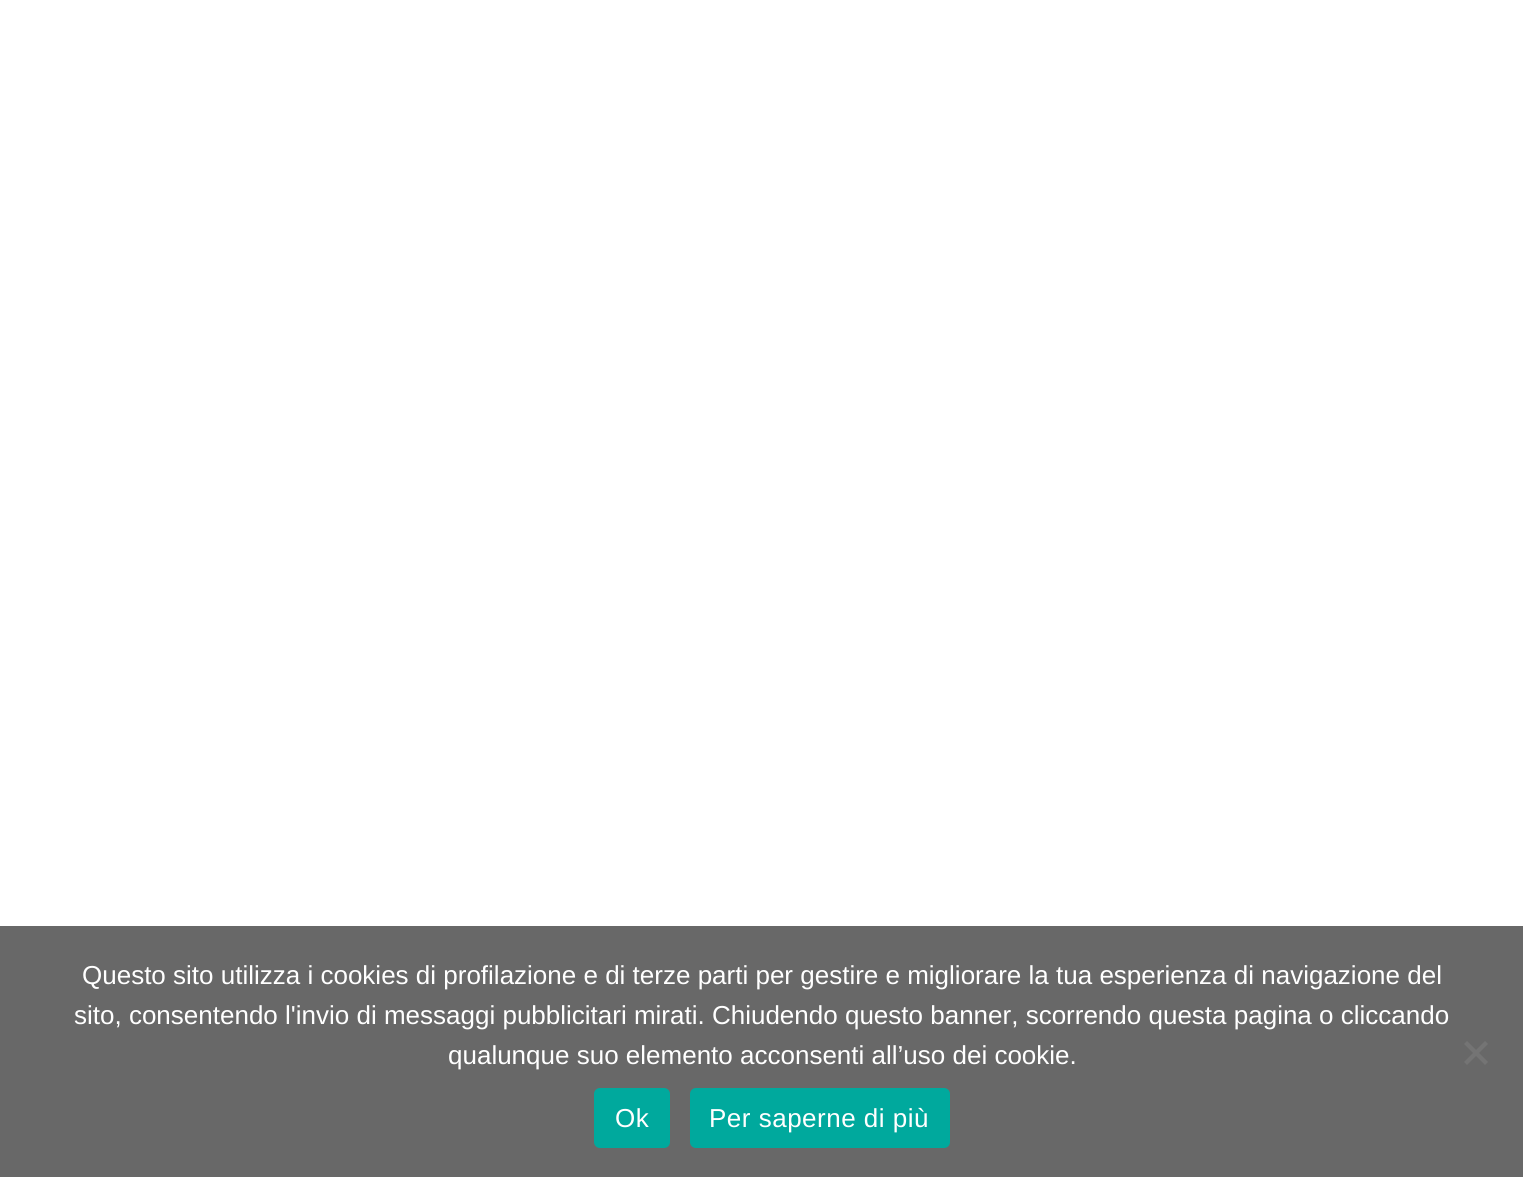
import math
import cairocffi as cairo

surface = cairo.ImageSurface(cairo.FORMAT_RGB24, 1523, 1177)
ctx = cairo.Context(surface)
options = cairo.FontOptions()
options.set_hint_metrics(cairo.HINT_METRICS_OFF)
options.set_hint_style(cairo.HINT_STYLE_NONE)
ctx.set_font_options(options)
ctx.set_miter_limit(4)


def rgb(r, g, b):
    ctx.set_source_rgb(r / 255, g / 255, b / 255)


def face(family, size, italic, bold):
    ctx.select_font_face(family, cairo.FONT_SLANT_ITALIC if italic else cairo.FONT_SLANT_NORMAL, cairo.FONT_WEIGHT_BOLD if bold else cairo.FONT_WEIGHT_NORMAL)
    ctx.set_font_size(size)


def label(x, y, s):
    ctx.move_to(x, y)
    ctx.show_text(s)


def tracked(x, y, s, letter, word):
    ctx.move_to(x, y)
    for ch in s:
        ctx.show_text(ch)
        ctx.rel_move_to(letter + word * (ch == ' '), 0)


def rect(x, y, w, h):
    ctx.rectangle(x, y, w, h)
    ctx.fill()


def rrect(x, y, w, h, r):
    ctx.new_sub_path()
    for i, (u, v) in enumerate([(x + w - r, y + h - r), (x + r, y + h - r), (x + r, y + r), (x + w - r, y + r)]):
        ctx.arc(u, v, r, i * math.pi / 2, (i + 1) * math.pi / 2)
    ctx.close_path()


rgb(255, 255, 255)
ctx.paint()
rgb(104, 104, 104)
rect(0, 926, 1523, 251)
face('Liberation Sans', 26, 0, 0)
rgb(255, 255, 255)
label(82, 984, 'Questo sito utilizza i cookies di profilazione e di terze parti per gestire e migliorare la tua esperienza di navigazione del')
label(74, 1024, 'sito, consentendo l\'invio di messaggi pubblicitari mirati. Chiudendo questo banner, scorrendo questa pagina o cliccando')
label(448, 1064, 'qualunque suo elemento acconsenti all’uso dei cookie.')
rgb(116, 116, 116)
ctx.new_path()
ctx.move_to(1485, 1041)
ctx.line_to(1488, 1044)
ctx.line_to(1467, 1065)
ctx.line_to(1464, 1062)
ctx.close_path()
ctx.fill()
ctx.new_path()
ctx.move_to(1464, 1044)
ctx.line_to(1467, 1041)
ctx.line_to(1488, 1062)
ctx.line_to(1485, 1065)
ctx.close_path()
ctx.fill()
rgb(0, 169, 157)
rrect(594, 1088, 76, 60, 6)
ctx.fill()
rgb(255, 255, 255)
tracked(615, 1127, 'Ok', 0.5, 0)
rgb(0, 169, 157)
rrect(690, 1088, 260, 60, 6)
ctx.fill()
rgb(255, 255, 255)
tracked(709, 1127, 'Per saperne di più', 0.5, 0)
surface.write_to_png('render.png')
